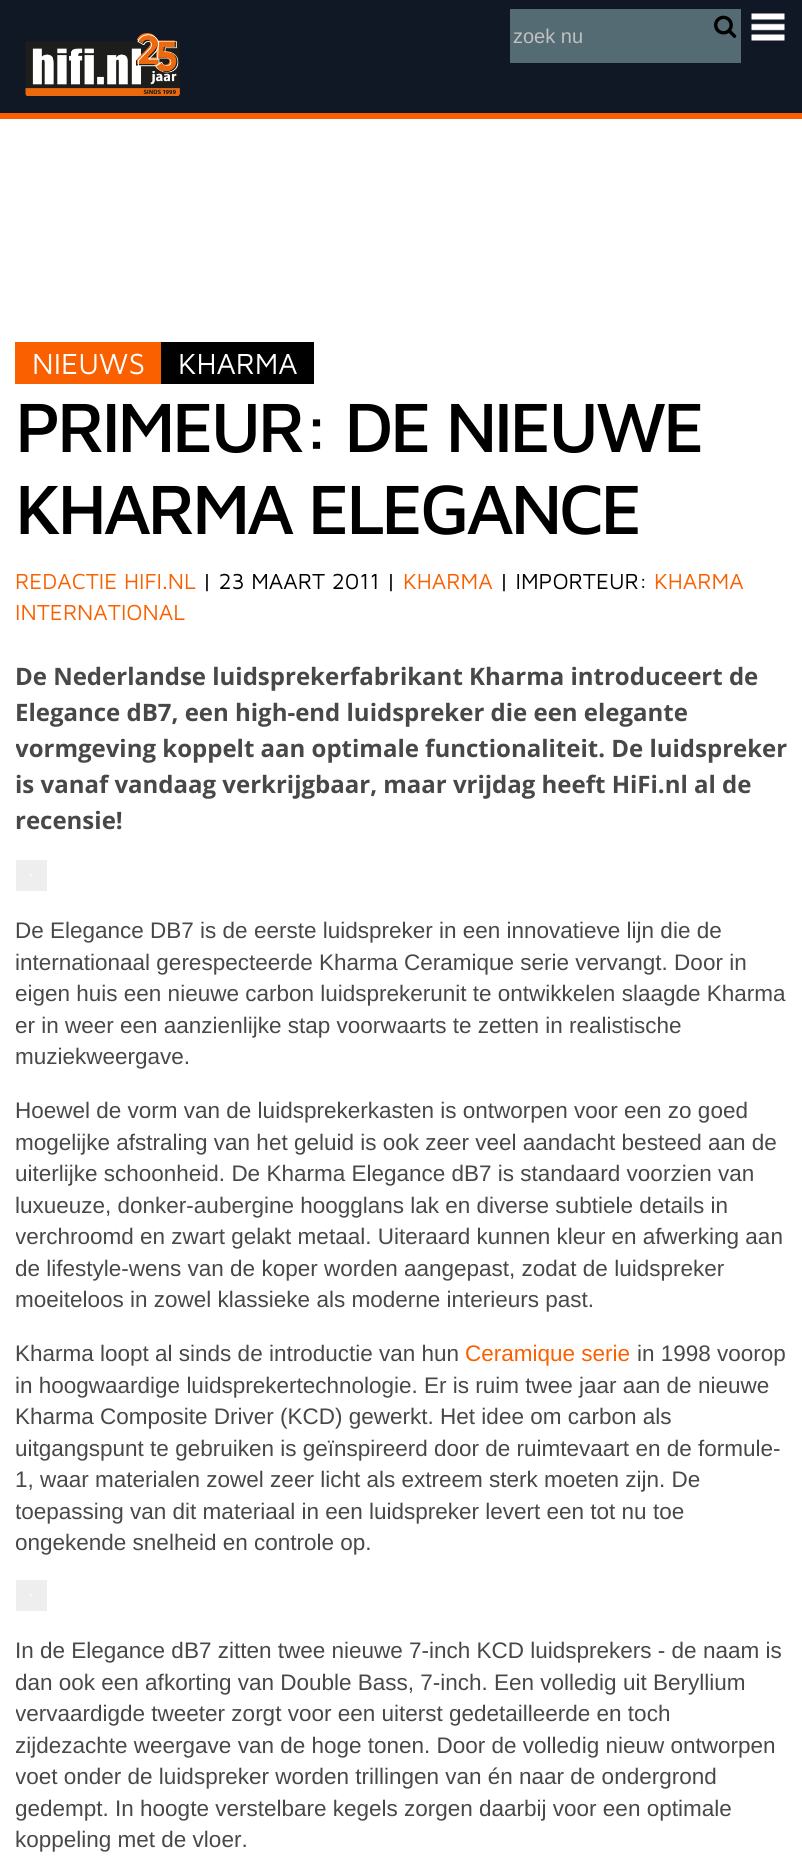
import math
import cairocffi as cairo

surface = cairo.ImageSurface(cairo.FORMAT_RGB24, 802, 1870)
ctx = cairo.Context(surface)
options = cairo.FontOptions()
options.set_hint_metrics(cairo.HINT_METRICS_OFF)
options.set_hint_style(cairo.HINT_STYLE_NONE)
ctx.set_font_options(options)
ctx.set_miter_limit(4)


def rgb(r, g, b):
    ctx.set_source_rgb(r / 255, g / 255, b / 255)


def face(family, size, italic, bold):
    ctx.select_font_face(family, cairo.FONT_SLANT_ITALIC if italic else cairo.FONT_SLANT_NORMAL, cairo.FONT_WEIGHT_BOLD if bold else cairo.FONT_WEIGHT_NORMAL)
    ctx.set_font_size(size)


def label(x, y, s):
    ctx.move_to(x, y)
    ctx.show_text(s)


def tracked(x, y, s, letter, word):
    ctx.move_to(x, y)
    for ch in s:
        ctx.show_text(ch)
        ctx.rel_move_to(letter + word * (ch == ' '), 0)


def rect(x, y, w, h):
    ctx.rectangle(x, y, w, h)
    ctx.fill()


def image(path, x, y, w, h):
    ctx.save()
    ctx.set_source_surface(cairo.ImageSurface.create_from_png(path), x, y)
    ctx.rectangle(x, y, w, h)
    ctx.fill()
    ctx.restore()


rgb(255, 255, 255)
ctx.paint()
rgb(16, 24, 37)
rect(0, 0, 802, 113)
rgb(250, 96, 0)
rect(0, 113, 802, 6)
image('image0.png', 25, 33, 155, 63)
rgb(84, 107, 115)
rect(510, 9, 231, 54)
face('Liberation Sans', 20, 0, 0)
rgb(192, 192, 192)
label(513, 43, 'zoek nu')
image('image1.png', 714, 15, 23, 23)
image('image2.png', 751, 13, 34, 28)
face('Open Sans', 24, 0, 1)
rgb(72, 72, 72)
label(15, 757, 'vormgeving koppelt aan optimale functionaliteit. De luidspreker')
ctx.rectangle(22.5, 867.5, 17, 16)
rgb(238, 238, 238)
ctx.set_line_width(15)
ctx.stroke()
image('image3.png', 30, 874, 2, 1)
face('Liberation Sans', 22.5, 0, 0)
rgb(72, 72, 72)
label(15, 1001, 'eigen huis een nieuwe carbon luidsprekerunit te ontwikkelen slaagde Kharma')
label(15, 1033, 'er in weer een aanzienlijke stap voorwaarts te zetten in realistische')
label(15, 1244, 'verchroomd en zwart gelakt metaal. Uiteraard kunnen kleur en afwerking aan')
label(15, 1276, 'de lifestyle-wens van de koper worden aangepast, zodat de luidspreker')
label(15, 1519, 'toepassing van dit materiaal in een luidspreker levert een tot nu toe')
label(15, 1550, 'ongekende snelheid en controle op.')
ctx.rectangle(22.5, 1587.5, 17, 16)
rgb(238, 238, 238)
ctx.stroke()
image('image3.png', 30, 1594, 2, 1)
rgb(72, 72, 72)
label(15, 1690, 'dan ook een afkorting van Double Bass, 7-inch. Een volledig uit Beryllium')
label(15, 1721, 'vervaardigde tweeter zorgt voor een uiterst gedetailleerde en toch')
label(15, 1753, 'zijdezachte weergave van de hoge tonen. Door de volledig nieuw ontworpen')
label(15, 1784, 'voet onder de luidspreker worden trillingen van én naar de ondergrond')
label(15, 1816, 'gedempt. In hoogte verstelbare kegels zorgen daarbij voor een optimale')
ctx.rectangle(10.5, 305.5, 782, 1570)
rgb(255, 255, 255)
ctx.set_line_width(11)
ctx.stroke()
rgb(0, 0, 0)
rect(161, 342, 153, 42)
rgb(250, 96, 0)
rect(15, 342, 146, 42)
face('Maven Pro', 30, 0, 0)
rgb(255, 255, 255)
label(32, 374, 'NIEUWS')
label(178, 374, 'KHARMA')
face('Maven Pro Medium', 72, 0, 0)
rgb(0, 0, 0)
tracked(15, 452, 'PRIMEUR: DE NIEUWE', -3.6, 0)
tracked(15, 534, 'KHARMA ELEGANCE', -3.6, 0)
face('Maven Pro', 22.5, 0, 0)
rgb(250, 96, 0)
label(15, 589, 'REDACTIE HIFI.NL')
rgb(0, 0, 0)
label(202, 589, '| 23 MAART 2011 |')
rgb(250, 96, 0)
label(403, 589, 'KHARMA')
rgb(0, 0, 0)
label(499, 589, '| IMPORTEUR:')
rgb(250, 96, 0)
label(654, 589, 'KHARMA')
label(15, 620, 'INTERNATIONAL')
face('Open Sans', 24, 0, 1)
rgb(72, 72, 72)
label(15, 685, 'De Nederlandse luidsprekerfabrikant Kharma introduceert de')
label(15, 721, 'Elegance dB7, een high-end luidspreker die een elegante')
label(15, 793, 'is vanaf vandaag verkrijgbaar, maar vrijdag heeft HiFi.nl al de')
label(15, 829, 'recensie!')
face('Liberation Sans', 22.5, 0, 0)
label(15, 938, 'De Elegance DB7 is de eerste luidspreker in een innovatieve lijn die de')
label(15, 970, 'internationaal gerespecteerde Kharma Ceramique serie vervangt. Door in')
label(15, 1064, 'muziekweergave.')
label(15, 1118, 'Hoewel de vorm van de luidsprekerkasten is ontworpen voor een zo goed')
label(15, 1150, 'mogelijke afstraling van het geluid is ook zeer veel aandacht besteed aan de')
label(15, 1181, 'uiterlijke schoonheid. De Kharma Elegance dB7 is standaard voorzien van')
label(15, 1213, 'luxueuze, donker-aubergine hoogglans lak en diverse subtiele details in')
label(15, 1307, 'moeiteloos in zowel klassieke als moderne interieurs past.')
label(15, 1361, 'Kharma loopt al sinds de introductie van hun')
rgb(250, 96, 0)
label(465, 1361, 'Ceramique serie')
rgb(72, 72, 72)
label(637, 1361, 'in 1998 voorop')
label(15, 1393, 'in hoogwaardige luidsprekertechnologie. Er is ruim twee jaar aan de nieuwe')
label(15, 1424, 'Kharma Composite Driver (KCD) gewerkt. Het idee om carbon als')
label(15, 1456, 'uitgangspunt te gebruiken is geïnspireerd door de ruimtevaart en de formule-')
label(15, 1487, '1, waar materialen zowel zeer licht als extreem sterk moeten zijn. De')
label(15, 1658, 'In de Elegance dB7 zitten twee nieuwe 7-inch KCD luidsprekers - de naam is')
label(15, 1847, 'koppeling met de vloer.')
surface.write_to_png('render.png')
